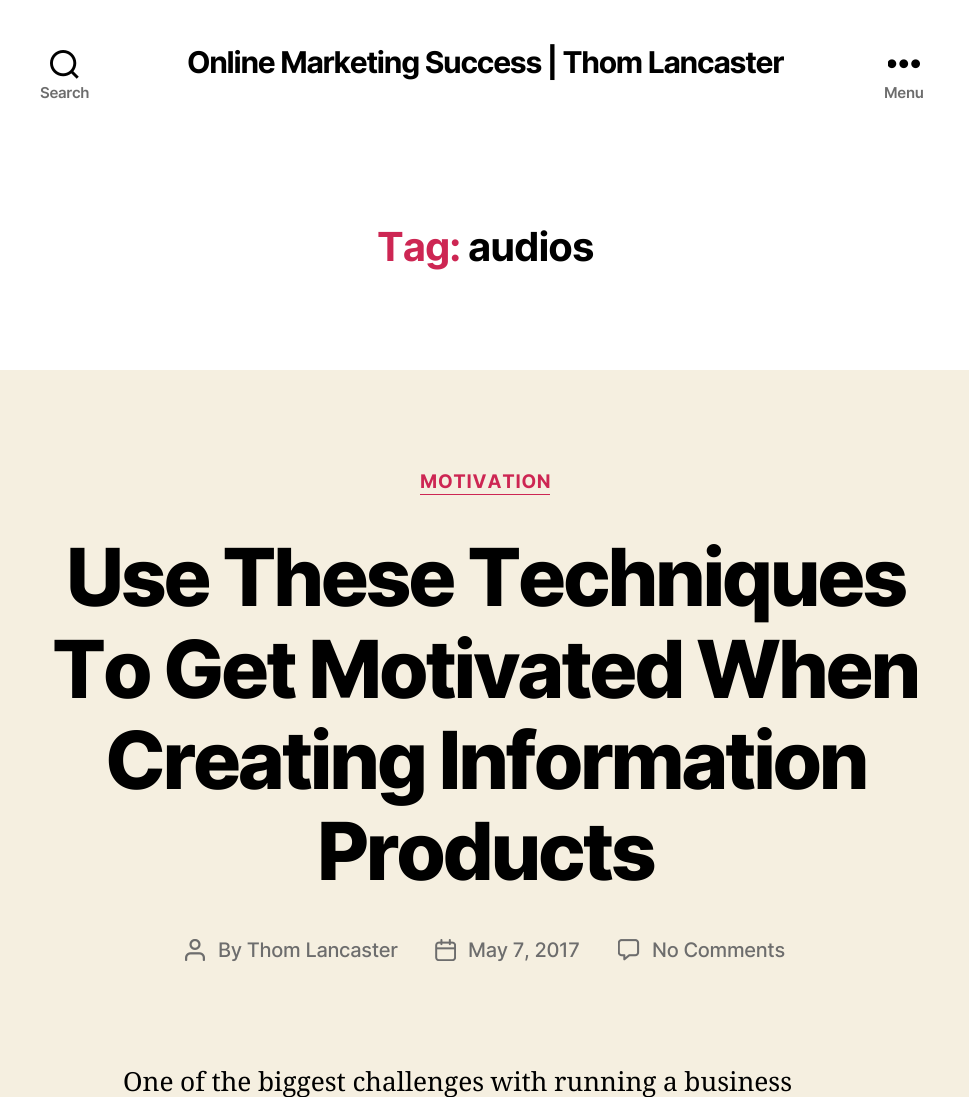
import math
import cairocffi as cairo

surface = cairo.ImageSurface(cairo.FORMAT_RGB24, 969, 1097)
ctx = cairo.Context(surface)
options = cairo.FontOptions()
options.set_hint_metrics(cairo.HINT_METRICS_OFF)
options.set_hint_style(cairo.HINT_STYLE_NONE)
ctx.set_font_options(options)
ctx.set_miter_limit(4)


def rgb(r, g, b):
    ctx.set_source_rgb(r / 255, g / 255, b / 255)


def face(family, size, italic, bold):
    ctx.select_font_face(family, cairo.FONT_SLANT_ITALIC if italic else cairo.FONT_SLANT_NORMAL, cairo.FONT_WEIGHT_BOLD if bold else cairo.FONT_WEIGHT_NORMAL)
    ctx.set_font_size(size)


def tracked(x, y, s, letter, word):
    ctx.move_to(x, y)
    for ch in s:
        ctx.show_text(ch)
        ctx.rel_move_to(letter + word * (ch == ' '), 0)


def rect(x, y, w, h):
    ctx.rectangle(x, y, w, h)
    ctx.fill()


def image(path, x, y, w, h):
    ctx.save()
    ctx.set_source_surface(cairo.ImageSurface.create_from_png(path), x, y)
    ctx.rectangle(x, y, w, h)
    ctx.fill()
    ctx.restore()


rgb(245, 239, 224)
ctx.paint()
rgb(255, 255, 255)
rect(0, 0, 969, 370)
face('Inter', 30, 0, 1)
rgb(0, 0, 0)
tracked(187, 73, 'Online Marketing Success | Thom Lancaster', -1.25, 0)
image('image0.png', 50, 50, 29, 29)
face('Inter SemiBold', 15, 0, 0)
rgb(109, 109, 109)
tracked(40, 98, 'Search', -0.3, 0)
image('image1.png', 888, 59, 32, 10)
tracked(884, 98, 'Menu', -0.3, 0)
face('Inter', 40, 0, 1)
rgb(205, 38, 83)
tracked(377, 261, 'Tag:', -1, 0)
rgb(0, 0, 0)
tracked(468, 261, 'audios', -1, 0)
rgb(205, 38, 83)
rect(420, 494, 130, 1)
face('Inter', 18.75, 0, 1)
tracked(420, 488, 'MOTIVATION', 0.75, 0)
face('Inter ExtraBold', 80, 0, 0)
rgb(0, 0, 0)
tracked(66, 606, 'Use These Techniques', -3.3, 0)
tracked(52, 698, 'To Get Motivated When', -3.3, 0)
tracked(105, 789, 'Creating Information', -3.3, 0)
tracked(317, 880, 'Products', -3.3, 0)
image('image2.png', 185, 939, 20, 22)
face('Inter Medium', 20, 0, 0)
rgb(109, 109, 109)
tracked(218, 957, 'By Thom Lancaster', -0.3, 0)
image('image3.png', 435, 939, 21, 22)
tracked(468, 957, 'May 7, 2017', -0.3, 0)
image('image4.png', 618, 939, 22, 22)
tracked(652, 957, 'No Comments', -0.3, 0)
face('Noto Serif', 26.25, 0, 0)
rgb(0, 0, 0)
tracked(123, 1091, 'One of the biggest challenges with running a business', 0, -0.25)
surface.write_to_png('render.png')
